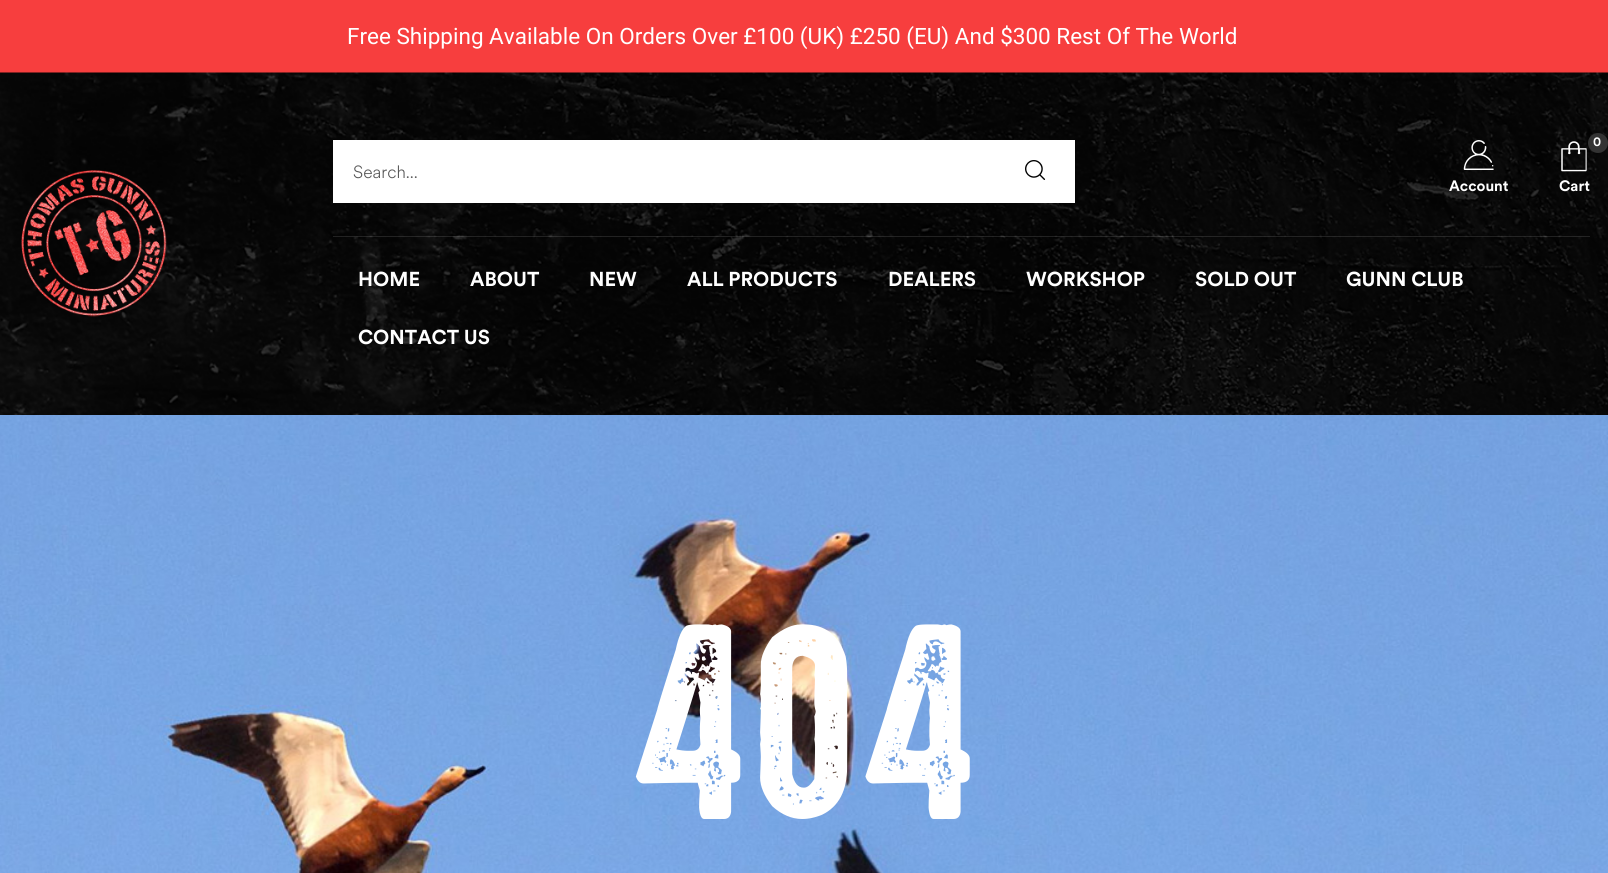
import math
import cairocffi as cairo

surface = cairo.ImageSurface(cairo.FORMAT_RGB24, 1608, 873)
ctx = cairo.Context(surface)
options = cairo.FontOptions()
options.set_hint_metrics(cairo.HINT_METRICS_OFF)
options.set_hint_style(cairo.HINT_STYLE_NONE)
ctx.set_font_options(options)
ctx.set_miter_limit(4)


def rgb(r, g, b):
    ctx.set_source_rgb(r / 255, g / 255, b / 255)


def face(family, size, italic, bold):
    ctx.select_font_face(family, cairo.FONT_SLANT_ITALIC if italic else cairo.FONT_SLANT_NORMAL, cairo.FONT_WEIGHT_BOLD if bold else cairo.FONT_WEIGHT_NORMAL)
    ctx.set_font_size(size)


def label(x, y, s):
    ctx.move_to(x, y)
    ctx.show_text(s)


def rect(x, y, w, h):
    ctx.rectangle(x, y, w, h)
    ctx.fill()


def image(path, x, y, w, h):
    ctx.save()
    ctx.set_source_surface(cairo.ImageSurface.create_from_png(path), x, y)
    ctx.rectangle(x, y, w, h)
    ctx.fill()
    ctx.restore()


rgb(255, 255, 255)
ctx.paint()
rgb(247, 62, 62)
rect(0, 0, 1608, 73)
face('Roboto', 22.5, 0, 0)
rgb(255, 255, 255)
label(347, 44, 'Free Shipping Available On Orders Over £100 (UK) £250 (EU) And $300 Rest Of The World')
image('image0.png', 0, 72, 1608, 343)
image('image1.png', 21, 170, 146, 147)
ctx.set_source_rgba(1, 1, 1, 0.12)
rect(333, 236, 1257, 1)
rgb(255, 255, 255)
rect(333, 140, 742, 63)
face('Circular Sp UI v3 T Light', 17.5, 0, 0)
rgb(85, 85, 85)
label(353, 178, 'Search...')
image('image2.png', 1025, 160, 21, 20)
image('image3.png', 1463, 140, 31, 30)
face('Circular Sp UI v3 T', 15, 0, 1)
rgb(255, 255, 255)
label(1449, 191, 'Account')
image('image4.png', 1561, 141, 26, 31)
rgb(51, 51, 51)
ctx.arc(1598, 143, 10, 0, 2 * math.pi)
ctx.fill()
face('Circular Sp UI v3 T', 12, 0, 1)
rgb(255, 255, 255)
label(1593, 146, '0')
face('Circular Sp UI v3 T', 15, 0, 1)
label(1559, 191, 'Cart')
face('Circular Sp UI v3 T', 20, 0, 1)
label(358, 286, 'HOME')
label(470, 286, 'ABOUT')
label(589, 286, 'NEW')
label(687, 286, 'ALL PRODUCTS')
label(888, 286, 'DEALERS')
label(1026, 286, 'WORKSHOP')
label(1195, 286, 'SOLD OUT')
label(1346, 286, 'GUNN CLUB')
label(358, 344, 'CONTACT US')
image('image5.png', 0, 415, 1608, 458)
face('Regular', 250, 0, 0)
label(631, 819, '404')
surface.write_to_png('render.png')
